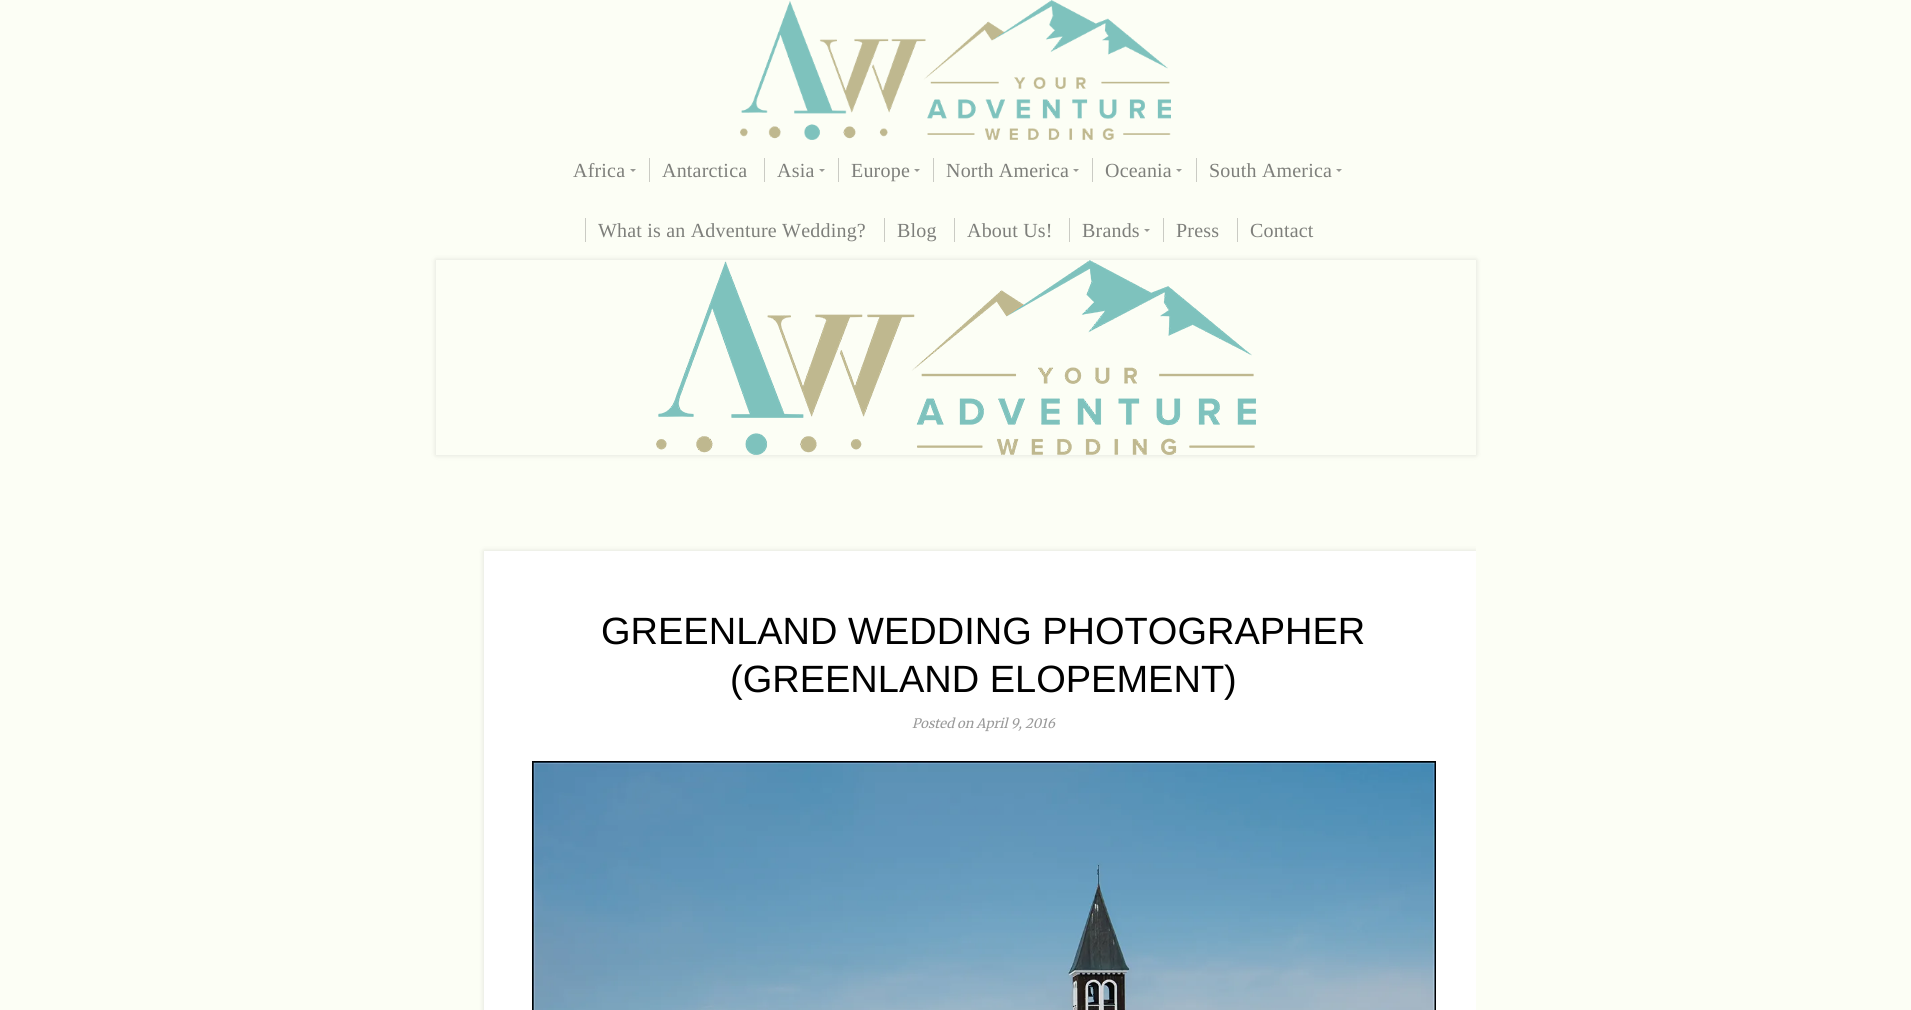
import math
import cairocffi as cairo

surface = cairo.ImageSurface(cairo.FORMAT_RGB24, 1911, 1010)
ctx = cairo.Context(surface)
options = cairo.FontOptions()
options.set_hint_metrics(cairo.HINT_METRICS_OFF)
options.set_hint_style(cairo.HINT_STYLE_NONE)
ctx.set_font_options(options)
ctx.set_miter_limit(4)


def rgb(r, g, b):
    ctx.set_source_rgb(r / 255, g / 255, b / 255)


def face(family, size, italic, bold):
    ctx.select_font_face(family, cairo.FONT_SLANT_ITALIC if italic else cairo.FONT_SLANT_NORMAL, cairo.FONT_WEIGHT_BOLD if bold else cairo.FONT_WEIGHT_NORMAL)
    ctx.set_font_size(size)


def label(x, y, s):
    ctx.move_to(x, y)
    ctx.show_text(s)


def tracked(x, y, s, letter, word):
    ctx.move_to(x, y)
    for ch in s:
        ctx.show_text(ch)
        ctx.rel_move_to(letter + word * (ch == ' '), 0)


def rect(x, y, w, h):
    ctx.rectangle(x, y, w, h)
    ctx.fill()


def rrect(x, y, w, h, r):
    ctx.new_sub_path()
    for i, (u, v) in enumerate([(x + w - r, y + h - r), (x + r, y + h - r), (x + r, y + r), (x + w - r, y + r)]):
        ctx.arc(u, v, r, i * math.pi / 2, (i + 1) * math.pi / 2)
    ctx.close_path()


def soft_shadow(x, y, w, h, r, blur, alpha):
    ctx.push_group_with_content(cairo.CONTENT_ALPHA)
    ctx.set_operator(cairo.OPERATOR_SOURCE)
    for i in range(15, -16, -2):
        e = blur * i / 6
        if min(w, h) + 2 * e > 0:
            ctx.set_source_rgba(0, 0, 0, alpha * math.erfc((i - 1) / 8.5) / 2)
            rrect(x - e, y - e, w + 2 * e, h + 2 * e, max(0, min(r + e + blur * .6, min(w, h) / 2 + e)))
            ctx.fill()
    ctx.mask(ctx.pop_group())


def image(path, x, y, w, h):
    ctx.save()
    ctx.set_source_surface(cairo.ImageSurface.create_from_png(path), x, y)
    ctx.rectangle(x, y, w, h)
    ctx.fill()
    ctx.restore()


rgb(252, 254, 245)
ctx.paint()
image('image0.png', 740, 0, 431, 140)
face('Liberation Serif', 20, 0, 0)
rgb(126, 127, 123)
tracked(573, 177, 'Africa', 0.2, 0)
rgb(151, 152, 147)
ctx.new_path()
ctx.move_to(630, 169)
ctx.line_to(636, 169)
ctx.line_to(633, 172)
ctx.close_path()
ctx.fill()
rgb(202, 203, 196)
rect(649, 158, 1, 24)
rgb(126, 127, 123)
tracked(662, 177, 'Antarctica', 0.2, 0)
rgb(202, 203, 196)
rect(764, 158, 1, 24)
rgb(126, 127, 123)
tracked(777, 177, 'Asia', 0.2, 0)
rgb(151, 152, 147)
ctx.new_path()
ctx.move_to(819, 169)
ctx.line_to(825, 169)
ctx.line_to(822, 172)
ctx.close_path()
ctx.fill()
rgb(202, 203, 196)
rect(838, 158, 1, 24)
rgb(126, 127, 123)
tracked(851, 177, 'Europe', 0.2, 0)
rgb(151, 152, 147)
ctx.new_path()
ctx.move_to(914, 169)
ctx.line_to(920, 169)
ctx.line_to(917, 172)
ctx.close_path()
ctx.fill()
rgb(202, 203, 196)
rect(933, 158, 1, 24)
rgb(126, 127, 123)
tracked(946, 177, 'North America', 0.2, 0)
rgb(151, 152, 147)
ctx.new_path()
ctx.move_to(1073, 169)
ctx.line_to(1079, 169)
ctx.line_to(1076, 172)
ctx.close_path()
ctx.fill()
rgb(202, 203, 196)
rect(1092, 158, 1, 24)
rgb(126, 127, 123)
tracked(1105, 177, 'Oceania', 0.2, 0)
rgb(151, 152, 147)
ctx.new_path()
ctx.move_to(1176, 169)
ctx.line_to(1182, 169)
ctx.line_to(1179, 172)
ctx.close_path()
ctx.fill()
rgb(202, 203, 196)
rect(1196, 158, 1, 24)
rgb(126, 127, 123)
tracked(1209, 177, 'South America', 0.2, 0)
rgb(151, 152, 147)
ctx.new_path()
ctx.move_to(1336, 169)
ctx.line_to(1342, 169)
ctx.line_to(1339, 172)
ctx.close_path()
ctx.fill()
rgb(202, 203, 196)
rect(585, 218, 1, 24)
rgb(126, 127, 123)
tracked(598, 237, 'What is an Adventure Wedding?', 0.2, 0)
rgb(202, 203, 196)
rect(884, 218, 1, 24)
rgb(126, 127, 123)
tracked(897, 237, 'Blog', 0.2, 0)
rgb(202, 203, 196)
rect(954, 218, 1, 24)
rgb(126, 127, 123)
tracked(967, 237, 'About Us!', 0.2, 0)
rgb(202, 203, 196)
rect(1069, 218, 1, 24)
rgb(126, 127, 123)
tracked(1082, 237, 'Brands', 0.2, 0)
rgb(151, 152, 147)
ctx.new_path()
ctx.move_to(1144, 229)
ctx.line_to(1150, 229)
ctx.line_to(1147, 232)
ctx.close_path()
ctx.fill()
rgb(202, 203, 196)
rect(1163, 218, 1, 24)
rgb(126, 127, 123)
tracked(1176, 237, 'Press', 0.2, 0)
rgb(202, 203, 196)
rect(1237, 218, 1, 24)
rgb(126, 127, 123)
tracked(1250, 237, 'Contact', 0.2, 0)
ctx.save()
ctx.set_fill_rule(cairo.FILL_RULE_EVEN_ODD)
ctx.new_path()
ctx.move_to(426, 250)
ctx.line_to(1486, 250)
ctx.line_to(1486, 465)
ctx.line_to(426, 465)
ctx.close_path()
ctx.move_to(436, 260)
ctx.line_to(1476, 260)
ctx.line_to(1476, 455)
ctx.line_to(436, 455)
ctx.close_path()
ctx.clip()
rgb(0, 0, 0)
soft_shadow(436, 260, 1040, 195, 0, 3, 0.12)
ctx.restore()
image('image1.png', 656, 260, 600, 195)
ctx.save()
ctx.rectangle(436, 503, 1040, 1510)
ctx.clip()
rgb(0, 0, 0)
soft_shadow(484, 551, 992, 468, 0, 3, 0.12)
ctx.restore()
rgb(255, 255, 255)
rect(484, 551, 992, 459)
face('Liberation Sans', 38, 0, 0)
rgb(0, 0, 0)
label(601, 644, 'GREENLAND WEDDING PHOTOGRAPHER')
label(730, 692, '(GREENLAND ELOPEMENT)')
face('Merriweather', 13, 1, 0)
rgb(153, 153, 153)
label(912, 728, 'Posted on April 9, 2016')
image('image2.png', 532, 761, 904, 249)
surface.write_to_png('render.png')
